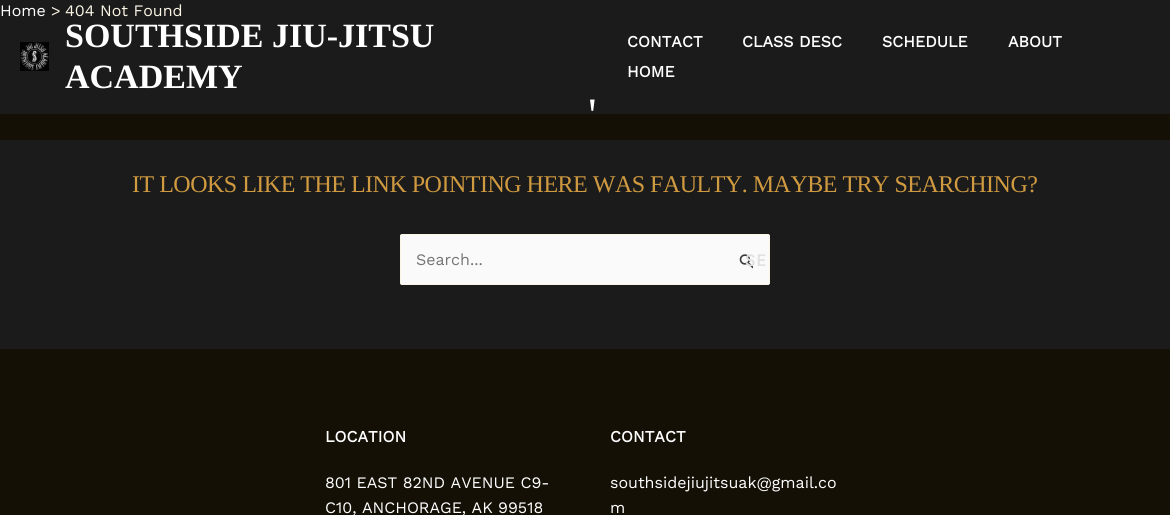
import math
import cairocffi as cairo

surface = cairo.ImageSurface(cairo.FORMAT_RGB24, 1170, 515)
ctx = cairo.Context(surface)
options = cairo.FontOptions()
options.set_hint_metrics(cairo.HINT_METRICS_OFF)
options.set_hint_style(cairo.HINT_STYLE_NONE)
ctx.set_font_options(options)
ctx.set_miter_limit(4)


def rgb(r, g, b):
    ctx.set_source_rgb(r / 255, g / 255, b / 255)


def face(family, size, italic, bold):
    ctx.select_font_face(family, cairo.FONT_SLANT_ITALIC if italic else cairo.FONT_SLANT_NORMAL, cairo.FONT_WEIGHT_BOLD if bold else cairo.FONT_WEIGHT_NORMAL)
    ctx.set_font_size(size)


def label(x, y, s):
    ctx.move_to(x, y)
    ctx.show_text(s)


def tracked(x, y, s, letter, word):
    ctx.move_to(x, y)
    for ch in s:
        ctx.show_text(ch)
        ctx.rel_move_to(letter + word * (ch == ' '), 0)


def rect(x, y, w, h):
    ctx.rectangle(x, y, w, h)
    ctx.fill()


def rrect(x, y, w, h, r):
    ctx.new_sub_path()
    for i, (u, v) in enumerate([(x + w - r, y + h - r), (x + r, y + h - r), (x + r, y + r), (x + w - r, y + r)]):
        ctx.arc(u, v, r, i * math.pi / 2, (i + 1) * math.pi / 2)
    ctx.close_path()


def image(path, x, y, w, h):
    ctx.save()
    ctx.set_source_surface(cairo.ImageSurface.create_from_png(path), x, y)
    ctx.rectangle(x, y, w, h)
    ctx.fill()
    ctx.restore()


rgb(27, 27, 27)
ctx.paint()
face('Work Sans', 16, 0, 0)
rgb(255, 255, 255)
label(0, 16, 'Home')
rgb(250, 245, 229)
label(51, 16, '>')
label(65, 16, '404 Not Found')
face('Liberation Serif', 48, 0, 0)
rgb(255, 255, 255)
tracked(588, 131, '\'', -2, 0)
face('Liberation Serif', 24, 0, 0)
rgb(208, 154, 64)
tracked(132, 192, 'IT LOOKS LIKE THE LINK POINTING HERE WAS FAULTY. MAYBE TRY SEARCHING?', -0.5, 0)
rgb(250, 250, 250)
rrect(400.5, 234.5, 369, 50, 1.5)
ctx.fill_preserve()
rgb(250, 245, 229)
ctx.set_line_width(1)
ctx.stroke()
face('Work Sans', 16, 0, 0)
rgb(117, 117, 117)
label(416, 265, 'Search...')
image('image0.png', 739, 254, 14, 15)
face('Inter SemiBold', 16, 0, 0)
rgb(225, 225, 225)
tracked(745, 266, 'SE', 1, 0)
rgb(20, 16, 6)
rect(0, 114, 1170, 26)
image('image1.png', 20, 42, 29, 29)
face('Liberation Serif', 34, 0, 1)
rgb(255, 255, 255)
label(65, 47, 'SOUTHSIDE JIU-JITSU')
label(65, 88, 'ACADEMY')
face('Work Sans', 16, 0, 1)
label(627, 47, 'CONTACT')
label(742, 47, 'CLASS DESC')
label(882, 47, 'SCHEDULE')
label(1008, 47, 'ABOUT')
label(627, 77, 'HOME')
rgb(20, 16, 6)
rect(0, 349, 1170, 166)
rgb(255, 255, 255)
label(325, 442, 'LOCATION')
face('Work Sans', 16, 0, 0)
label(325, 488, '801 EAST 82ND AVENUE C9-')
label(325, 513, 'C10, ANCHORAGE, AK 99518')
face('Work Sans', 16, 0, 1)
label(610, 442, 'CONTACT')
face('Work Sans', 16, 0, 0)
label(610, 488, 'southsidejiujitsuak@gmail.co')
label(610, 513, 'm')
surface.write_to_png('render.png')
